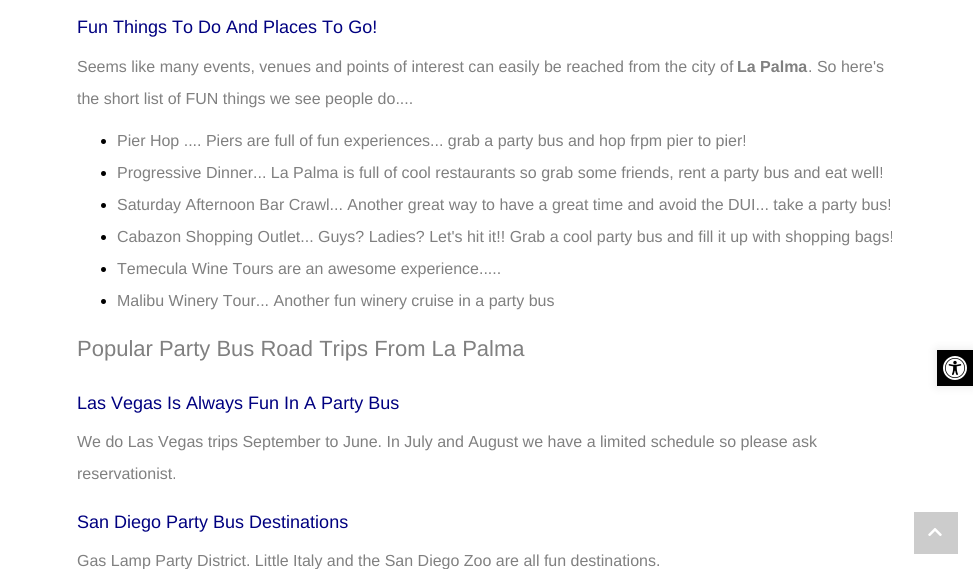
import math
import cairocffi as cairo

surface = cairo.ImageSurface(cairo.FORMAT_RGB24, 973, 569)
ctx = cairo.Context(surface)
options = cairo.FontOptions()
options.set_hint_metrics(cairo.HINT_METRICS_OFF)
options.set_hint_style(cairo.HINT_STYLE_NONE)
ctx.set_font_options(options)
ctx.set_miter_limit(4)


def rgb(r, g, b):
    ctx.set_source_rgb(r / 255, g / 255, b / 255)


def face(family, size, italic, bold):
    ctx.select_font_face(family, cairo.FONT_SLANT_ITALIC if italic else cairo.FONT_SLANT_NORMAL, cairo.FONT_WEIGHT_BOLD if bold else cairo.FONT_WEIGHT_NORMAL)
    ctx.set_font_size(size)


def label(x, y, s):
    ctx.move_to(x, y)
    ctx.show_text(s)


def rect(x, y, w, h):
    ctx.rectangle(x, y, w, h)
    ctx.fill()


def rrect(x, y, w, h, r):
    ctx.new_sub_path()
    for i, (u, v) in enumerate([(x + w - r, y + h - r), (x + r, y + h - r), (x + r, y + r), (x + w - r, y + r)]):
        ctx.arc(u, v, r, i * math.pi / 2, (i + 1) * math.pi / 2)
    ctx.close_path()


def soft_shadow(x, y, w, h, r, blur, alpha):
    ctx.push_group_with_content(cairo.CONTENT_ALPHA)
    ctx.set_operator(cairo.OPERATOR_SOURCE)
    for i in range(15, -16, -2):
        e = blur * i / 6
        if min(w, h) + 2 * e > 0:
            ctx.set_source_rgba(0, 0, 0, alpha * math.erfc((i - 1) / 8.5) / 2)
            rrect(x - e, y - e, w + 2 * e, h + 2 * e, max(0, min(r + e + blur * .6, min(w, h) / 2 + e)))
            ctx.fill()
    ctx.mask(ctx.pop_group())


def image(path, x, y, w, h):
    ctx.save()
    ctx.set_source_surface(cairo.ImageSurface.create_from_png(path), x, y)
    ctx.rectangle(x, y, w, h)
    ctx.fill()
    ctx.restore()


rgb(255, 255, 255)
ctx.paint()
face('Liberation Sans', 18, 0, 0)
rgb(0, 0, 128)
label(77, 33, 'Fun Things To Do And Places To Go!')
face('Liberation Sans', 16, 0, 0)
rgb(128, 128, 128)
label(77, 72, 'Seems like many events, venues and points of interest can easily be reached from the city of')
face('Liberation Sans', 16, 0, 1)
label(737, 72, 'La Palma')
face('Liberation Sans', 16, 0, 0)
label(808, 72, '. So here\'s')
label(77, 104, 'the short list of FUN things we see people do....')
rgb(0, 0, 0)
ctx.new_path()
ctx.arc(103.5, 141.5, 2.5, 0, 2 * math.pi)
ctx.fill()
rgb(128, 128, 128)
label(117, 146, 'Pier Hop .... Piers are full of fun experiences... grab a party bus and hop frpm pier to pier!')
rgb(0, 0, 0)
ctx.new_path()
ctx.arc(103.5, 173.5, 2.5, 0, 2 * math.pi)
ctx.fill()
rgb(128, 128, 128)
label(117, 178, 'Progressive Dinner... La Palma is full of cool restaurants so grab some friends, rent a party bus and eat well!')
rgb(0, 0, 0)
ctx.new_path()
ctx.arc(103.5, 205.5, 2.5, 0, 2 * math.pi)
ctx.fill()
rgb(128, 128, 128)
label(117, 210, 'Saturday Afternoon Bar Crawl... Another great way to have a great time and avoid the DUI... take a party bus!')
rgb(0, 0, 0)
ctx.new_path()
ctx.arc(103.5, 237.5, 2.5, 0, 2 * math.pi)
ctx.fill()
rgb(128, 128, 128)
label(117, 242, 'Cabazon Shopping Outlet... Guys? Ladies? Let\'s hit it!! Grab a cool party bus and fill it up with shopping bags!')
rgb(0, 0, 0)
ctx.new_path()
ctx.arc(103.5, 269.5, 2.5, 0, 2 * math.pi)
ctx.fill()
rgb(128, 128, 128)
label(117, 274, 'Temecula Wine Tours are an awesome experience.....')
rgb(0, 0, 0)
ctx.new_path()
ctx.arc(103.5, 301.5, 2.5, 0, 2 * math.pi)
ctx.fill()
rgb(128, 128, 128)
label(117, 306, 'Malibu Winery Tour... Another fun winery cruise in a party bus')
face('Liberation Sans', 22, 0, 0)
label(77, 356, 'Popular Party Bus Road Trips From La Palma')
face('Liberation Sans', 18, 0, 0)
rgb(0, 0, 128)
label(77, 409, 'Las Vegas Is Always Fun In A Party Bus')
face('Liberation Sans', 16, 0, 0)
rgb(128, 128, 128)
label(77, 447, 'We do Las Vegas trips September to June. In July and August we have a limited schedule so please ask')
label(77, 479, 'reservationist.')
face('Liberation Sans', 18, 0, 0)
rgb(0, 0, 128)
label(77, 528, 'San Diego Party Bus Destinations')
face('Liberation Sans', 16, 0, 0)
rgb(128, 128, 128)
label(77, 566, 'Gas Lamp Party District. Little Italy and the San Diego Zoo are all fun destinations.')
rgb(0, 0, 0)
soft_shadow(937, 350, 36, 36, 0, 5, 0.1)
rgb(0, 0, 0)
rect(937, 350, 36, 36)
image('image0.png', 943, 356, 24, 24)
rgb(204, 204, 204)
rect(914, 512, 44, 42)
image('image1.png', 928, 528, 14, 8)
surface.write_to_png('render.png')
